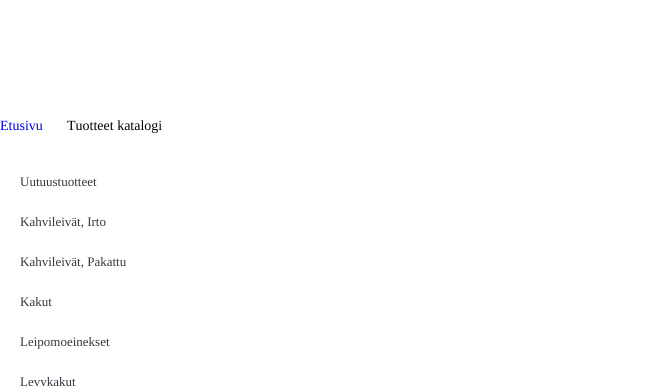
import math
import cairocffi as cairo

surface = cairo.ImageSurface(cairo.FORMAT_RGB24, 666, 386)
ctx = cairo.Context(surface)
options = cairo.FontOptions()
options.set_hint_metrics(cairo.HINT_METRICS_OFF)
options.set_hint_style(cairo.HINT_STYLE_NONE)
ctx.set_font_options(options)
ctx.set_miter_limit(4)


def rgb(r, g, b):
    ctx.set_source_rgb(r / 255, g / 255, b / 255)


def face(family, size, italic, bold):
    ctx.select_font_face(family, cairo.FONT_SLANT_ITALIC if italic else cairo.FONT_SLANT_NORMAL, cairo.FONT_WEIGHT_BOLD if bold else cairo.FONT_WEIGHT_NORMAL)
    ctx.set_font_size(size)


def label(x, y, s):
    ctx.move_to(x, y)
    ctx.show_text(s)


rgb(255, 255, 255)
ctx.paint()
face('Liberation Serif', 14, 0, 0)
rgb(0, 0, 238)
label(0, 130, 'Etusivu')
rgb(0, 0, 0)
label(67, 130, 'Tuotteet katalogi')
face('Liberation Serif', 13, 0, 0)
rgb(51, 55, 61)
label(20, 186, 'Uutuustuotteet')
label(20, 226, 'Kahvileivät, Irto')
label(20, 266, 'Kahvileivät, Pakattu')
label(20, 306, 'Kakut')
label(20, 346, 'Leipomoeinekset')
label(20, 386, 'Levykakut')
surface.write_to_png('render.png')
